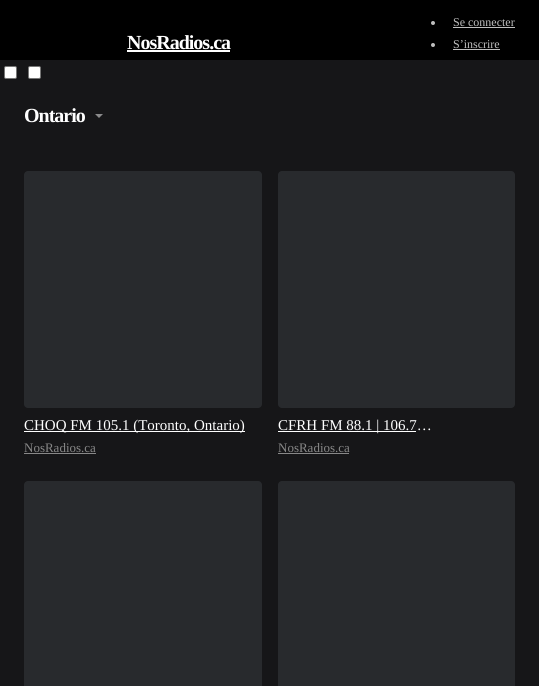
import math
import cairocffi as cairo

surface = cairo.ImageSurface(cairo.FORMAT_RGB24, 539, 686)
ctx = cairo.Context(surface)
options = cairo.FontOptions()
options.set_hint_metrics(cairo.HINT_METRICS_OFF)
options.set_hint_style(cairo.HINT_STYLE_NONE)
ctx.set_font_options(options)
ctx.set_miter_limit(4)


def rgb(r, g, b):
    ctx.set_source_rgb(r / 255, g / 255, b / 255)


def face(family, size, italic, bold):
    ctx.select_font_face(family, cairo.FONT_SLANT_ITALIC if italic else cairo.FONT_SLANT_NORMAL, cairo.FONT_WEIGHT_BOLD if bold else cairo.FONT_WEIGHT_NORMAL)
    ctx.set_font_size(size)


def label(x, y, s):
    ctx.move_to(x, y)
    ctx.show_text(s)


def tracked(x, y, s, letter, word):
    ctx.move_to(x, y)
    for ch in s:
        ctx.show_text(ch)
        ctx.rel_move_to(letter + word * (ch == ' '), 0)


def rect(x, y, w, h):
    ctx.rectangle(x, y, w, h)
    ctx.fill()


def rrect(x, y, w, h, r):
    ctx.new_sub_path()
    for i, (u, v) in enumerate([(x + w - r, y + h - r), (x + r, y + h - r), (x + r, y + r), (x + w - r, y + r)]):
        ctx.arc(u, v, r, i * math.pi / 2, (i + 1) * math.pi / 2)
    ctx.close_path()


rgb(22, 22, 24)
ctx.paint()
rgb(0, 0, 0)
rect(0, 0, 539, 60)
face('Liberation Serif', 20, 0, 1)
rgb(255, 255, 255)
tracked(127, 49, 'NosRadios.ca', -1, 0)
rect(127, 50, 103, 2)
rgb(191, 191, 191)
ctx.new_path()
ctx.arc(433, 23, 2, 0, 2 * math.pi)
ctx.fill()
face('Liberation Serif', 12, 0, 0)
label(453, 26, 'Se connecter')
rect(453, 27, 62, 1)
ctx.new_path()
ctx.arc(433, 45, 2, 0, 2 * math.pi)
ctx.fill()
label(453, 48, 'S’inscrire')
rect(453, 49, 47, 1)
rgb(255, 255, 255)
rrect(4.5, 66.5, 12, 12, 1.5)
ctx.fill_preserve()
rgb(118, 118, 118)
ctx.set_line_width(1)
ctx.stroke()
rgb(255, 255, 255)
rrect(28.5, 66.5, 12, 12, 1.5)
ctx.fill_preserve()
rgb(118, 118, 118)
ctx.stroke()
face('Liberation Serif', 20, 0, 1)
rgb(255, 255, 255)
tracked(24, 122, 'Ontario', -1, 0)
rgb(139, 139, 140)
ctx.new_path()
ctx.move_to(95, 114)
ctx.line_to(103, 114)
ctx.line_to(99, 118)
ctx.close_path()
ctx.fill()
rgb(40, 42, 45)
rrect(24, 171, 238, 237, 4)
ctx.fill()
rgb(255, 255, 255)
rect(24, 431, 221, 1)
face('Liberation Serif', 15, 0, 0)
label(24, 430, 'CHOQ FM 105.1 (Toronto, Ontario)')
face('Liberation Serif', 13, 0, 0)
rgb(136, 136, 136)
label(24, 452, 'NosRadios.ca')
rect(24, 453, 72, 1)
rgb(40, 42, 45)
rrect(278, 171, 237, 237, 4)
ctx.fill()
rgb(255, 255, 255)
rect(278, 431, 138, 1)
face('Liberation Serif', 15, 0, 0)
label(278, 430, 'CFRH FM 88.1 | 106.7…')
face('Liberation Serif', 13, 0, 0)
rgb(136, 136, 136)
label(278, 452, 'NosRadios.ca')
rect(278, 453, 71, 1)
rgb(40, 42, 45)
rrect(24, 481, 238, 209, 4)
ctx.fill()
rrect(278, 481, 237, 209, 4)
ctx.fill()
surface.write_to_png('render.png')
